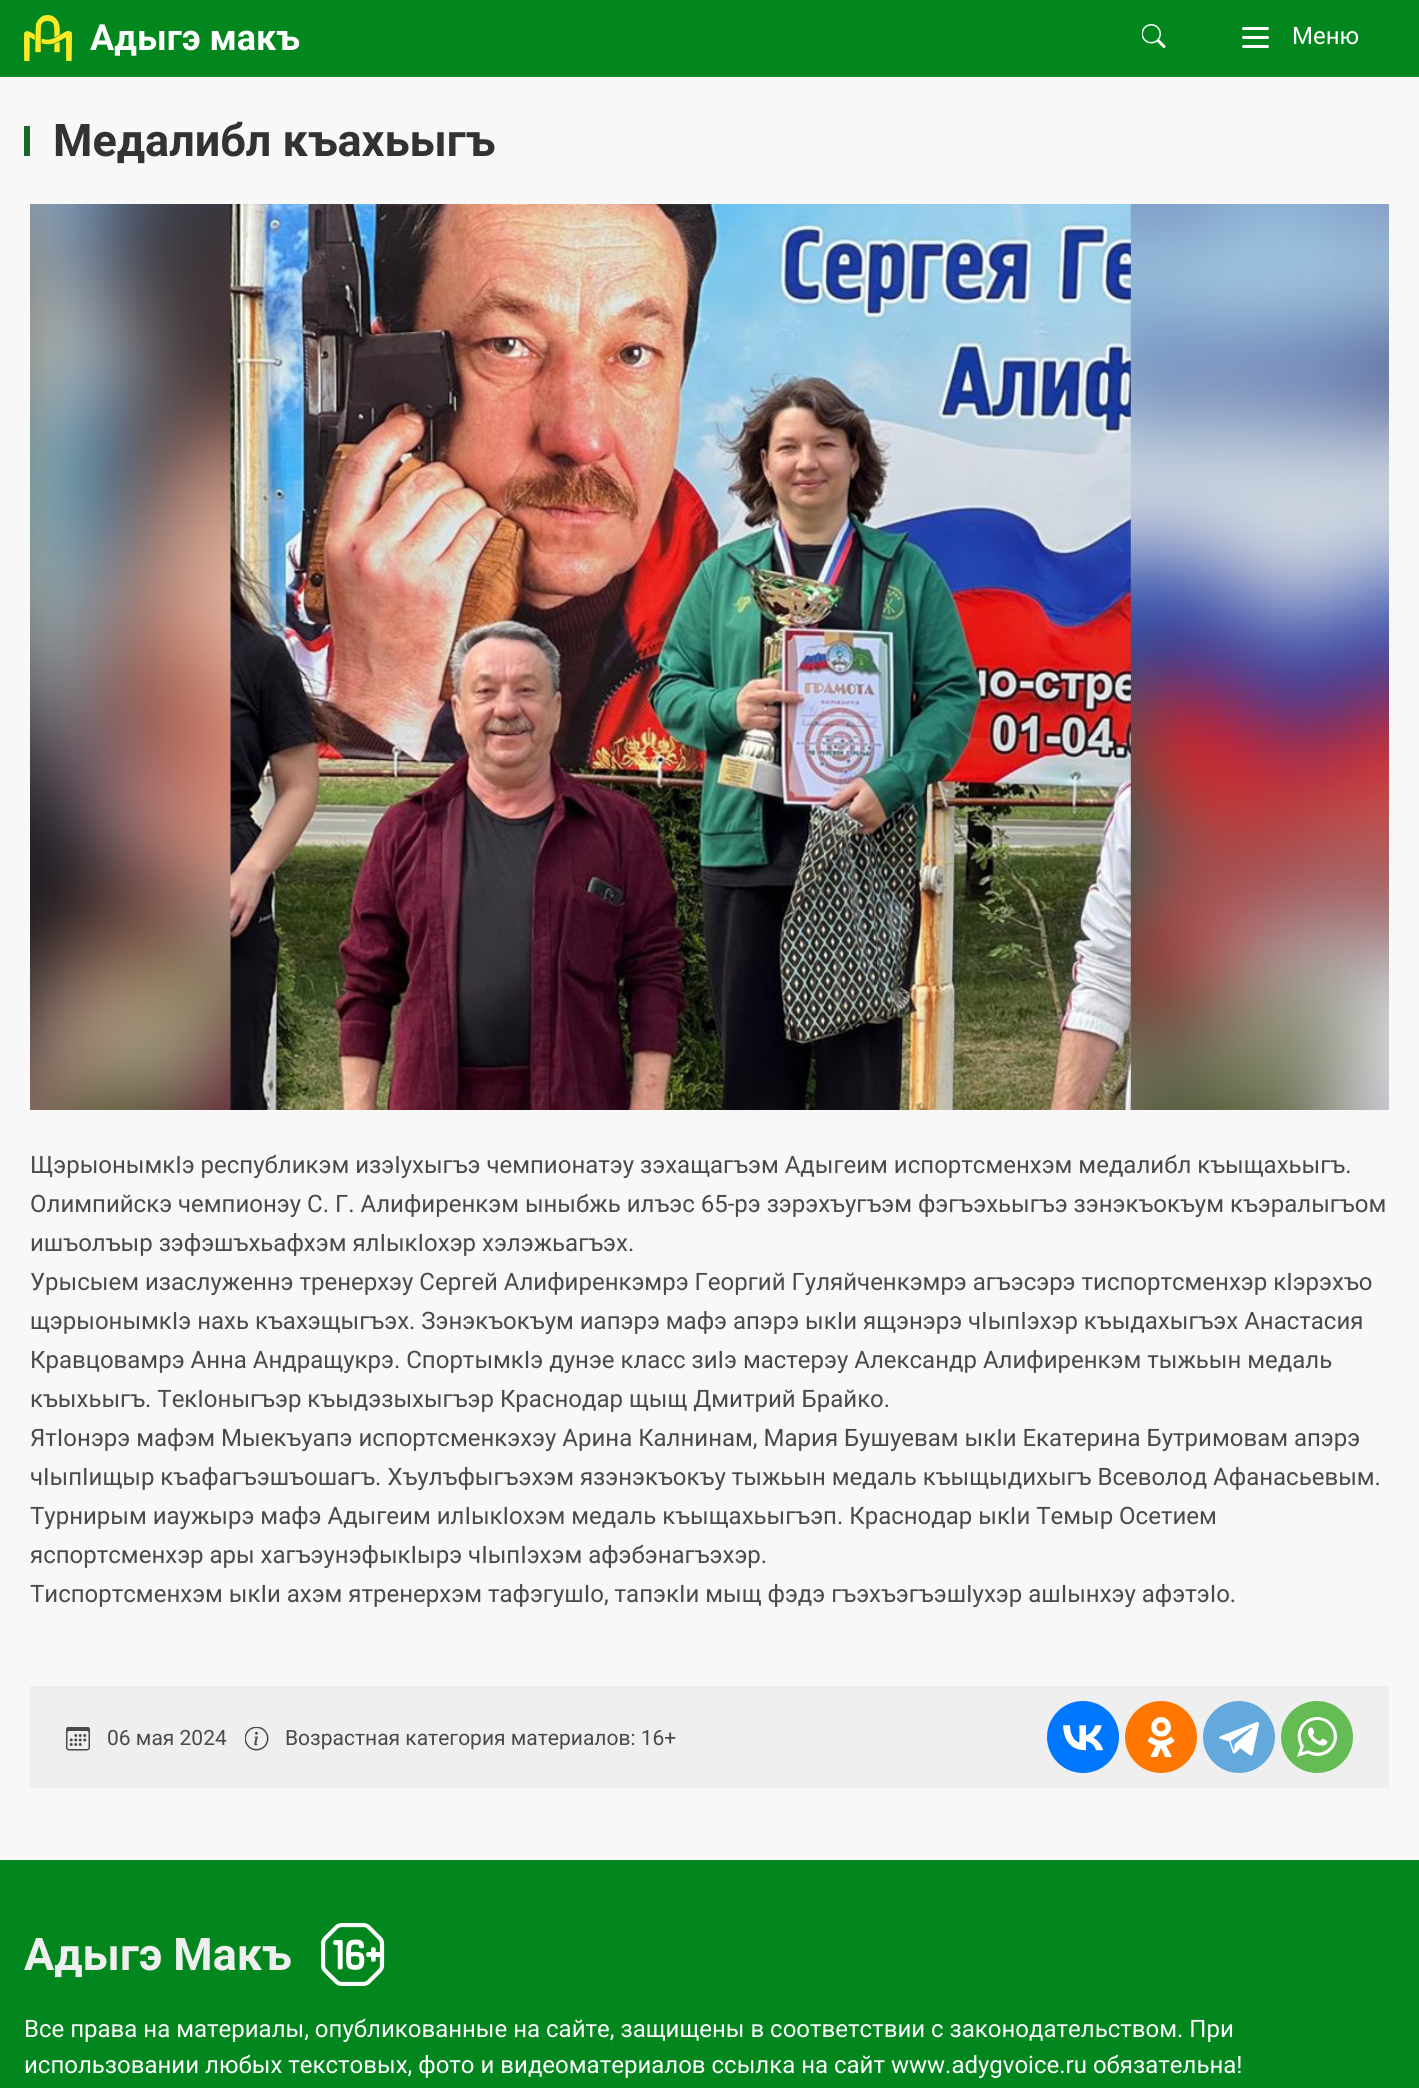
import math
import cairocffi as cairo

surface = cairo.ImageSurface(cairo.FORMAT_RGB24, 1419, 2088)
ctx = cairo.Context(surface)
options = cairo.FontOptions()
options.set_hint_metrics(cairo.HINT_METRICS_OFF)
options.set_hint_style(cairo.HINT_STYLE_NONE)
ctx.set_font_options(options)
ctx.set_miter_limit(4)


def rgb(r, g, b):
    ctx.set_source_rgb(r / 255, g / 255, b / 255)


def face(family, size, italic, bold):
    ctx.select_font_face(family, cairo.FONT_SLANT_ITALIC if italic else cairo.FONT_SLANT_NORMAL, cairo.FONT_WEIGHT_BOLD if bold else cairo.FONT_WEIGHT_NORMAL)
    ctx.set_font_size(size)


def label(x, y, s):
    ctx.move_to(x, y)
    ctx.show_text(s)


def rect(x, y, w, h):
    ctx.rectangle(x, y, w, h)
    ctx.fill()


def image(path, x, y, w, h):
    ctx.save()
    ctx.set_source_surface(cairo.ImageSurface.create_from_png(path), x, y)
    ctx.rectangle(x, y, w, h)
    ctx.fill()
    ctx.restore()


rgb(248, 248, 248)
ctx.paint()
rgb(1, 135, 30)
rect(0, 0, 1419, 77)
image('image0.png', 24, 15, 48, 47)
face('Roboto', 36, 0, 1)
rgb(255, 255, 255)
label(90, 50, 'Адыгэ макъ')
image('image1.png', 1142, 24, 24, 24)
ctx.new_path()
ctx.move_to(1243.5, 28.5)
ctx.line_to(1267.5, 28.5)
ctx.move_to(1243.5, 37.5)
ctx.line_to(1267.5, 37.5)
ctx.move_to(1243.5, 46.5)
ctx.line_to(1267.5, 46.5)
ctx.set_line_width(3)
ctx.set_line_cap(cairo.LINE_CAP_ROUND)
ctx.set_line_join(cairo.LINE_JOIN_ROUND)
ctx.stroke()
face('Roboto', 24, 0, 0)
label(1292, 44, 'Меню')
rgb(26, 101, 43)
rect(24, 126, 6, 30)
face('Roboto', 45, 0, 1)
rgb(50, 50, 50)
label(53, 156, 'Медалибл къахьыгъ')
image('image2.png', 30, 204, 1359, 906)
face('Roboto', 24, 0, 0)
rgb(77, 73, 72)
label(30, 1173, 'ЩэрыонымкIэ республикэм изэIухыгъэ чемпионатэу зэхащагъэм Адыгеим испортсменхэм медалибл къыщахьыгъ.')
label(30, 1212, 'Олимпийскэ чемпионэу С. Г. Алифиренкэм ыныбжь илъэс 65-рэ зэрэхъугъэм фэгъэхьыгъэ зэнэкъокъум къэралыгъом')
label(30, 1251, 'ишъолъыр зэфэшъхьафхэм ялIыкIохэр хэлэжьагъэх.')
label(30, 1290, 'Урысыем изаслуженнэ тренерхэу Сергей Алифиренкэмрэ Георгий Гуляйченкэмрэ агъэсэрэ тиспортсменхэр кIэрэхъо')
label(30, 1329, 'щэрыонымкIэ нахь къахэщыгъэх. Зэнэкъокъум иапэрэ мафэ апэрэ ыкIи ящэнэрэ чIыпIэхэр къыдахыгъэх Анастасия')
label(30, 1368, 'Кравцовамрэ Анна Андращукрэ. СпортымкIэ дунэе класс зиIэ мастерэу Александр Алифиренкэм тыжьын медаль')
label(30, 1407, 'къыхьыгъ. ТекIоныгъэр къыдэзыхыгъэр Краснодар щыщ Дмитрий Брайко.')
label(30, 1446, 'ЯтIонэрэ мафэм Мыекъуапэ испортсменкэхэу Арина Калнинам, Мария Бушуевам ыкIи Екатерина Бутримовам апэрэ')
label(30, 1485, 'чIыпIищыр къафагъэшъошагъ. Хъулъфыгъэхэм язэнэкъокъу тыжьын медаль къыщыдихыгъ Всеволод Афанасьевым.')
label(30, 1524, 'Турнирым иаужырэ мафэ Адыгеим илIыкIохэм медаль къыщахьыгъэп. Краснодар ыкIи Темыр Осетием')
label(30, 1563, 'яспортсменхэр ары хагъэунэфыкIырэ чIыпIэхэм афэбэнагъэхэр.')
label(30, 1602, 'Тиспортсменхэм ыкIи ахэм ятренерхэм тафэгушIо, тапэкIи мыщ фэдэ гъэхъэгъэшIухэр ашIынхэу афэтэIо.')
rgb(239, 239, 239)
rect(30, 1686, 1359, 102)
image('image3.png', 66, 1727, 24, 24)
face('Roboto', 21, 0, 0)
rgb(77, 73, 72)
label(107, 1745, '06 мая 2024')
image('image4.png', 245, 1727, 24, 24)
label(285, 1745, 'Возрастная категория материалов: 16+')
rgb(0, 119, 255)
ctx.new_path()
ctx.arc(1083, 1737, 36, 0, 2 * math.pi)
ctx.fill()
image('image5.png', 1063, 1725, 40, 26)
rgb(255, 119, 0)
ctx.arc(1161, 1737, 36, 0, 2 * math.pi)
ctx.fill()
image('image6.png', 1147, 1717, 28, 40)
rgb(100, 169, 220)
ctx.arc(1239, 1737, 36, 0, 2 * math.pi)
ctx.fill()
image('image7.png', 1219, 1722, 40, 34)
rgb(101, 188, 84)
ctx.arc(1317, 1737, 36, 0, 2 * math.pi)
ctx.fill()
image('image8.png', 1297, 1717, 40, 40)
rgb(1, 135, 30)
rect(0, 1860, 1419, 228)
face('Roboto', 45, 0, 1)
rgb(239, 239, 239)
label(24, 1970, 'Адыгэ Макъ')
image('image9.png', 321, 1923, 64, 63)
face('Roboto', 24, 0, 0)
rgb(255, 255, 255)
label(24, 2037, 'Все права на материалы, опубликованные на сайте, защищены в соответствии с законодательством. При')
label(24, 2073, 'использовании любых текстовых, фото и видеоматериалов ссылка на сайт www.adygvoice.ru обязательна!')
surface.write_to_png('render.png')
